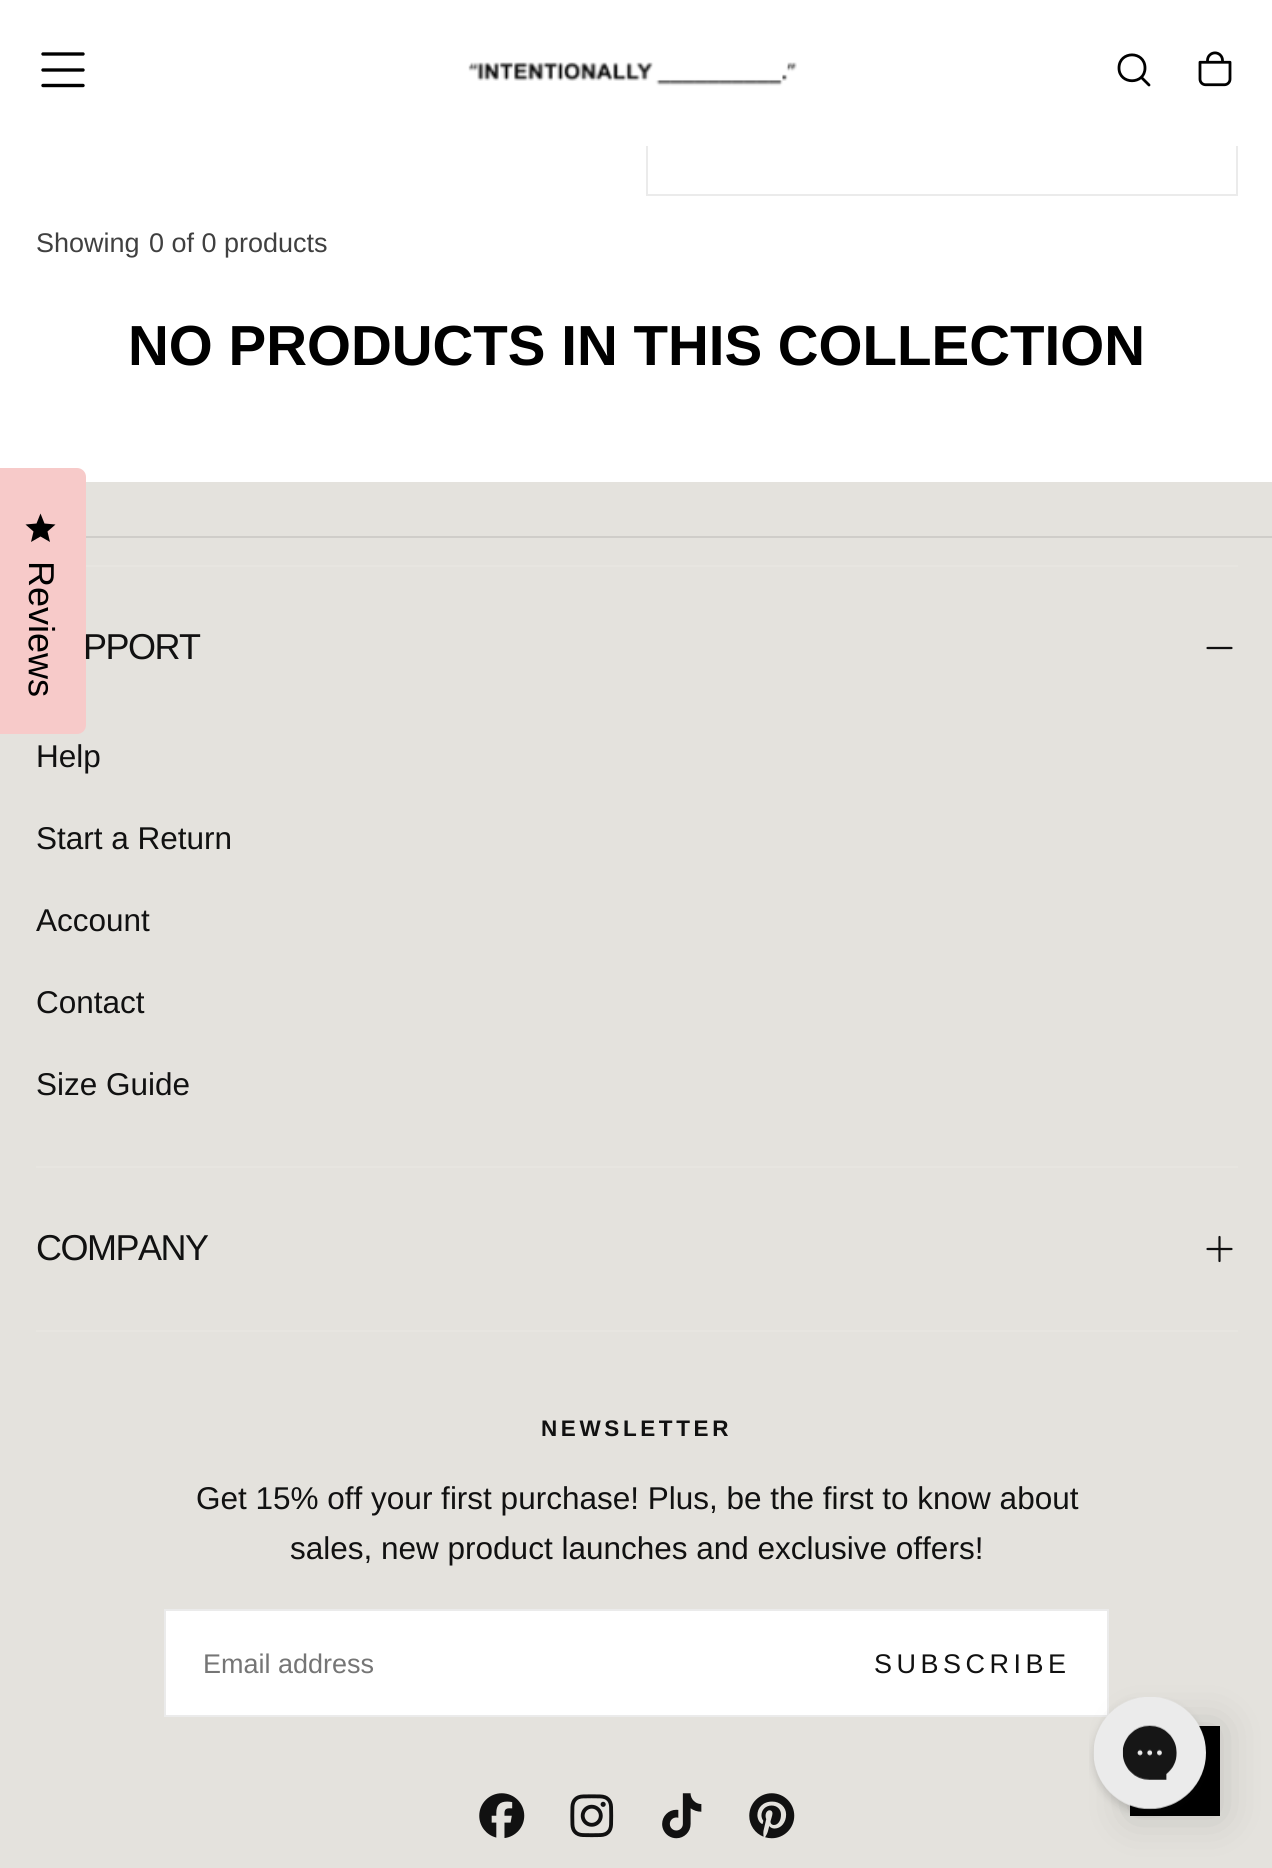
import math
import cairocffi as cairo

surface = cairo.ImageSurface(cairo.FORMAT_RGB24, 1272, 1868)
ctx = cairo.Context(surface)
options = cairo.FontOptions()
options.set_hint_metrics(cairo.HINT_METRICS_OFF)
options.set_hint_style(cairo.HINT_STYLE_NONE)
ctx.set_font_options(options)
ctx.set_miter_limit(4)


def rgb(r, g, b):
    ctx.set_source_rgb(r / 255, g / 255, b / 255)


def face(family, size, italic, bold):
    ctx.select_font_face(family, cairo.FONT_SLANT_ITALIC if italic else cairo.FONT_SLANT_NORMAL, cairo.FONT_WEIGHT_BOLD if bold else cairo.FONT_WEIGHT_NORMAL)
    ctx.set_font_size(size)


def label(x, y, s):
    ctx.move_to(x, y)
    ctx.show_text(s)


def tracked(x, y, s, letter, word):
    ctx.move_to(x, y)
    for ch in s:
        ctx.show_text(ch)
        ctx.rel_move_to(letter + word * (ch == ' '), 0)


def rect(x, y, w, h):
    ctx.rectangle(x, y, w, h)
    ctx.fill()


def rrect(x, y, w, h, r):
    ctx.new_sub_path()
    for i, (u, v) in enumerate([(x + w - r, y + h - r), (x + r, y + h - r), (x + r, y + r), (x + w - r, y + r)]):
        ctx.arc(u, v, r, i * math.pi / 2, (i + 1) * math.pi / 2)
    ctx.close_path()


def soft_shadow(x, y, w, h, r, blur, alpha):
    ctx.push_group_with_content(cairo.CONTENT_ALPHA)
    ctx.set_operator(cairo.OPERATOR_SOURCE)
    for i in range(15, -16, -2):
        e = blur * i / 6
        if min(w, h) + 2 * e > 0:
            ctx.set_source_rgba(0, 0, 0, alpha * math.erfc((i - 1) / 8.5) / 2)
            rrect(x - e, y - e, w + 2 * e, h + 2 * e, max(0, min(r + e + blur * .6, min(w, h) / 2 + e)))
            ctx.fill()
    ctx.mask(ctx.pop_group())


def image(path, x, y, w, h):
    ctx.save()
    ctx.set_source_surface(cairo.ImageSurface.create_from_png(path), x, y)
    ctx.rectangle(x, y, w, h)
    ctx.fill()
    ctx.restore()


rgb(255, 255, 255)
ctx.paint()
ctx.rectangle(647, 82, 590, 113)
rgb(235, 235, 235)
ctx.stroke()
rgb(255, 255, 255)
rect(646, 81, 592, 65)
ctx.new_path()
ctx.move_to(43, 70)
ctx.line_to(83, 70)
ctx.move_to(43, 54)
ctx.line_to(83, 54)
ctx.move_to(43, 85.5)
ctx.line_to(83, 85.5)
rgb(0, 0, 0)
ctx.set_line_width(3.4)
ctx.set_line_cap(cairo.LINE_CAP_ROUND)
ctx.stroke()
image('image0.png', 468, 62, 329, 24)
ctx.new_path()
ctx.move_to(1149, 85)
ctx.line_to(1141.5, 77.5)
ctx.move_to(1145, 68)
ctx.curve_to(1145, 85, 1119, 85, 1119, 68)
ctx.curve_to(1119, 50.5, 1145, 50.5, 1145, 68)
ctx.close_path()
ctx.set_line_width(2.8)
ctx.stroke()
image('image1.png', 1198, 51, 34, 36)
face('Liberation Sans', 27, 0, 0)
rgb(64, 64, 64)
label(36, 252, 'Showing')
label(149, 252, '0 of 0 products')
face('Liberation Sans', 56.5, 0, 1)
rgb(0, 0, 0)
label(128, 365, 'NO PRODUCTS IN THIS COLLECTION')
rgb(228, 226, 221)
rect(0, 482, 1272, 1386)
rgb(247, 202, 201)
ctx.new_path()
ctx.move_to(-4, 468)
ctx.line_to(77, 468)
ctx.curve_to(82, 468, 86, 472, 86, 477)
ctx.line_to(86, 725)
ctx.curve_to(86, 730, 82, 734, 77, 734)
ctx.line_to(-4, 734)
ctx.close_path()
ctx.fill()
rgb(0, 0, 0)
ctx.new_path()
ctx.move_to(40.5, 536.5)
ctx.line_to(50, 542)
ctx.line_to(47.5, 531.5)
ctx.line_to(55.5, 524.5)
ctx.line_to(44.5, 523.5)
ctx.line_to(40.5, 513.5)
ctx.line_to(36.5, 523.5)
ctx.line_to(25.5, 524.5)
ctx.line_to(33.5, 531.5)
ctx.line_to(31, 542)
ctx.close_path()
ctx.fill()
face('Liberation Sans', 36, 0, 0)
ctx.save()
ctx.translate(29, 561)
ctx.rotate(90.1 * math.pi / 180)
label(0, 0, 'Reviews')
ctx.restore()
rgb(207, 205, 201)
rect(86, 536, 1186, 2)
rgb(231, 229, 224)
rect(86, 565, 1152, 2)
rect(36, 1166, 1202, 2)
rgb(17, 17, 17)
tracked(83, 659, 'PPORT', -1.5, 0)
ctx.new_path()
ctx.move_to(1207.5, 648)
ctx.line_to(1231.5, 648)
ctx.set_line_width(2.2)
ctx.stroke()
face('Liberation Sans', 31.5, 0, 0)
label(36, 767, 'Help')
label(36, 849, 'Start a Return')
label(36, 931, 'Account')
label(36, 1013, 'Contact')
label(36, 1095, 'Size Guide')
rgb(231, 229, 224)
rect(36, 1330, 1202, 2)
face('Liberation Sans', 36, 0, 0)
rgb(17, 17, 17)
tracked(36, 1260, 'COMPANY', -1.5, 0)
ctx.new_path()
ctx.move_to(1219.5, 1237)
ctx.line_to(1219.5, 1249)
ctx.move_to(1219.5, 1249)
ctx.line_to(1219.5, 1261)
ctx.move_to(1219.5, 1249)
ctx.line_to(1207.5, 1249)
ctx.move_to(1219.5, 1249)
ctx.line_to(1231.5, 1249)
ctx.stroke()
face('Liberation Sans', 22.5, 0, 1)
tracked(541, 1436, 'NEWSLETTER', 3.6, 0)
face('Liberation Sans', 31.5, 0, 0)
label(196, 1509, 'Get 15% off your first purchase! Plus, be the first to know about')
label(290, 1559, 'sales, new product launches and exclusive offers!')
rgb(255, 255, 255)
ctx.rectangle(165, 1610, 943, 106)
ctx.fill_preserve()
rgb(235, 235, 235)
ctx.set_line_width(2)
ctx.set_line_cap(cairo.LINE_CAP_BUTT)
ctx.stroke()
face('Liberation Sans', 27, 0, 0)
rgb(117, 117, 117)
label(203, 1673, 'Email address')
rgb(17, 17, 17)
tracked(874, 1673, 'SUBSCRIBE', 4.5, 0)
image('image2.png', 479, 1793, 46, 45)
image('image3.png', 570, 1794, 44, 44)
image('image4.png', 662, 1793, 40, 46)
image('image5.png', 749, 1793, 46, 46)
rgb(0, 0, 0)
soft_shadow(1130, 1726, 90, 90, 0, 22.5, 0.15)
rgb(0, 0, 0)
rect(1130, 1726, 90, 90)
image('image6.png', 1089, 1697, 117, 121)
surface.write_to_png('render.png')
